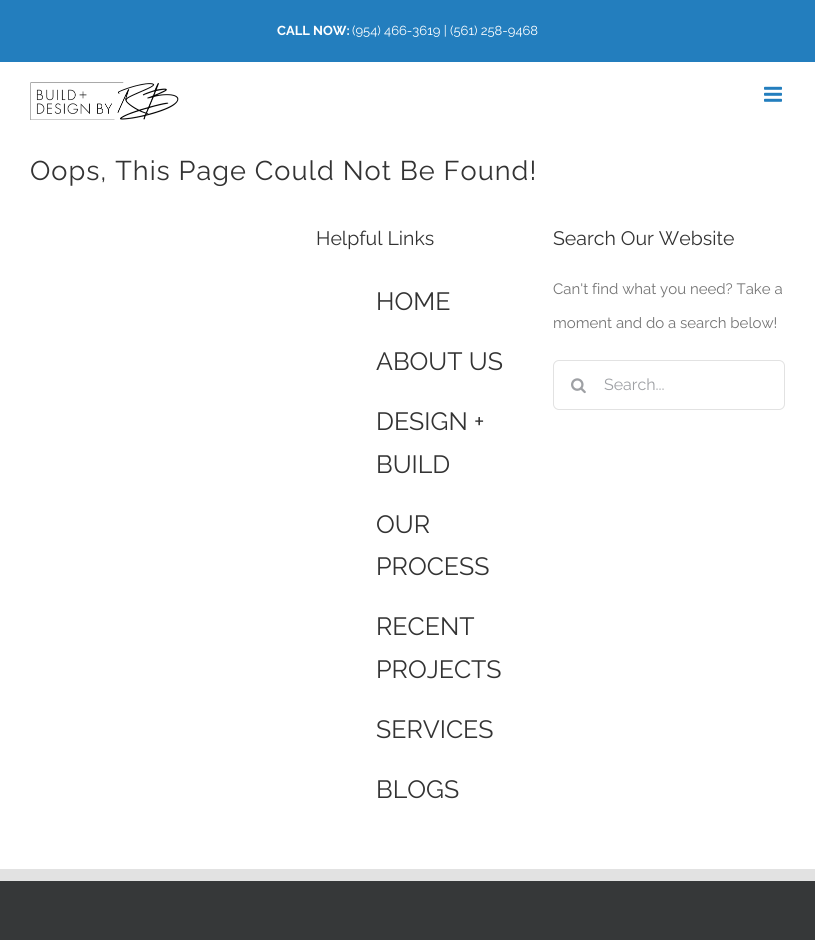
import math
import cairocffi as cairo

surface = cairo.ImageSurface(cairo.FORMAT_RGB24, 815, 940)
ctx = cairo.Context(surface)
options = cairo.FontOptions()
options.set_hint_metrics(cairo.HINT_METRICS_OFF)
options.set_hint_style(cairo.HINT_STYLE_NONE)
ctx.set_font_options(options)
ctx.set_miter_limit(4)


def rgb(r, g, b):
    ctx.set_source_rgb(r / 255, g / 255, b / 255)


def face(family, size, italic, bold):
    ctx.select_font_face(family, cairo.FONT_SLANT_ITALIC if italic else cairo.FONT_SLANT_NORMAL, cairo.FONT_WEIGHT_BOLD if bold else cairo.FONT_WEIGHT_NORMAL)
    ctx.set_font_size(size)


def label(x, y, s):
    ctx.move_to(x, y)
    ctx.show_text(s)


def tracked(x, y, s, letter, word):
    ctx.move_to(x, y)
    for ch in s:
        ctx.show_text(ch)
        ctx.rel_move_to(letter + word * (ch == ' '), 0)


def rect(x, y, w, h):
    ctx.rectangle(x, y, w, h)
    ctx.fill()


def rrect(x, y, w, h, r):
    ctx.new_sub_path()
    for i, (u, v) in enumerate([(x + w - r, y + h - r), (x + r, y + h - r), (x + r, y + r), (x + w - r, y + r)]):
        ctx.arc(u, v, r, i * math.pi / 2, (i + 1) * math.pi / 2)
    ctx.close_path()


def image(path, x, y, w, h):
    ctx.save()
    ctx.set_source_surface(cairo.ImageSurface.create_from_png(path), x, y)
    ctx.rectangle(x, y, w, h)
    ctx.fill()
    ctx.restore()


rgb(255, 255, 255)
ctx.paint()
rgb(35, 126, 190)
rect(0, 0, 815, 62)
face('Raleway', 13, 0, 1)
rgb(255, 255, 255)
label(277, 35, 'CALL NOW:')
face('Raleway', 13, 0, 0)
label(352, 35, '(954) 466-3619 | (561) 258-9468')
image('image0.png', 30, 82, 149, 38)
image('image1.png', 764, 86, 18, 16)
face('Raleway', 27.1, 0, 0)
rgb(51, 51, 51)
tracked(30, 180, 'Oops, This Page Could Not Be Found!', 1, 0)
face('Raleway', 19.5, 0, 0)
label(316, 245, 'Helpful Links')
face('Raleway', 25, 0, 0)
label(376, 310, 'HOME')
label(376, 370, 'ABOUT US')
label(376, 430, 'DESIGN +')
label(376, 473, 'BUILD')
label(376, 533, 'OUR')
label(376, 575, 'PROCESS')
label(376, 635, 'RECENT')
label(376, 678, 'PROJECTS')
label(376, 738, 'SERVICES')
label(376, 798, 'BLOGS')
face('Raleway', 19.5, 0, 0)
label(553, 245, 'Search Our Website')
face('Raleway', 15, 0, 0)
rgb(116, 116, 116)
label(553, 294, 'Can\'t find what you need? Take a')
label(553, 328, 'moment and do a search below!')
rrect(553.5, 360.5, 231, 49, 5.5)
rgb(226, 226, 226)
ctx.set_line_width(1)
ctx.stroke()
image('image2.png', 571, 378, 15, 16)
face('Raleway', 16, 0, 0)
rgb(158, 160, 164)
label(604, 390, 'Search...')
rgb(54, 56, 57)
rect(0, 881, 815, 59)
rgb(226, 226, 226)
rect(0, 869, 815, 12)
surface.write_to_png('render.png')
